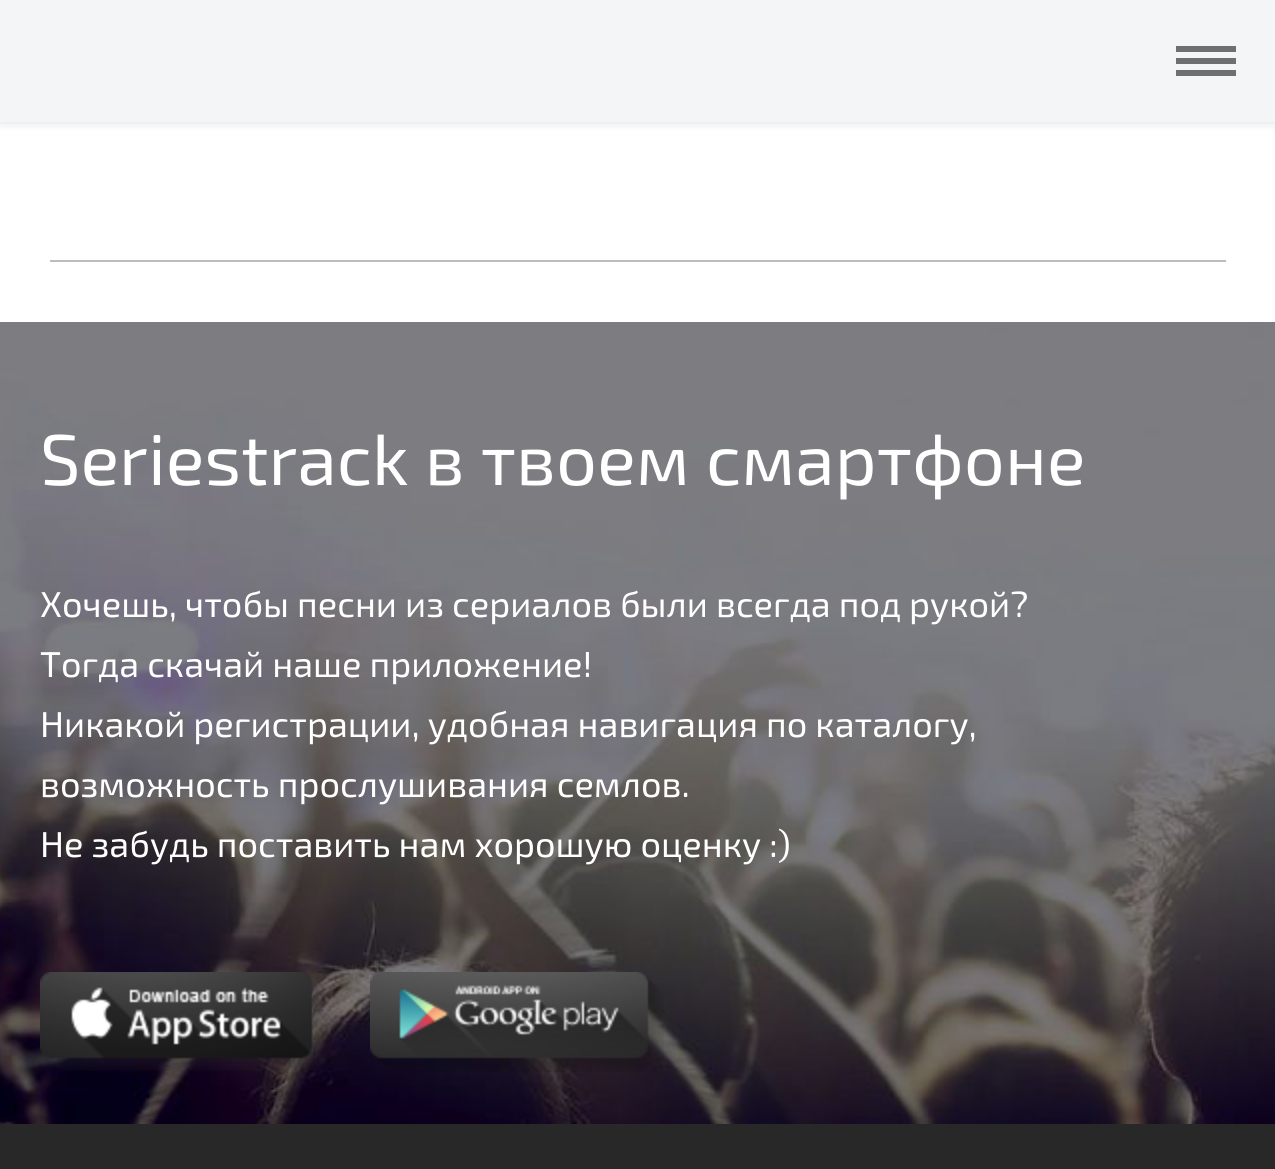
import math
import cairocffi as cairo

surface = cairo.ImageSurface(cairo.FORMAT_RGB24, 1275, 1169)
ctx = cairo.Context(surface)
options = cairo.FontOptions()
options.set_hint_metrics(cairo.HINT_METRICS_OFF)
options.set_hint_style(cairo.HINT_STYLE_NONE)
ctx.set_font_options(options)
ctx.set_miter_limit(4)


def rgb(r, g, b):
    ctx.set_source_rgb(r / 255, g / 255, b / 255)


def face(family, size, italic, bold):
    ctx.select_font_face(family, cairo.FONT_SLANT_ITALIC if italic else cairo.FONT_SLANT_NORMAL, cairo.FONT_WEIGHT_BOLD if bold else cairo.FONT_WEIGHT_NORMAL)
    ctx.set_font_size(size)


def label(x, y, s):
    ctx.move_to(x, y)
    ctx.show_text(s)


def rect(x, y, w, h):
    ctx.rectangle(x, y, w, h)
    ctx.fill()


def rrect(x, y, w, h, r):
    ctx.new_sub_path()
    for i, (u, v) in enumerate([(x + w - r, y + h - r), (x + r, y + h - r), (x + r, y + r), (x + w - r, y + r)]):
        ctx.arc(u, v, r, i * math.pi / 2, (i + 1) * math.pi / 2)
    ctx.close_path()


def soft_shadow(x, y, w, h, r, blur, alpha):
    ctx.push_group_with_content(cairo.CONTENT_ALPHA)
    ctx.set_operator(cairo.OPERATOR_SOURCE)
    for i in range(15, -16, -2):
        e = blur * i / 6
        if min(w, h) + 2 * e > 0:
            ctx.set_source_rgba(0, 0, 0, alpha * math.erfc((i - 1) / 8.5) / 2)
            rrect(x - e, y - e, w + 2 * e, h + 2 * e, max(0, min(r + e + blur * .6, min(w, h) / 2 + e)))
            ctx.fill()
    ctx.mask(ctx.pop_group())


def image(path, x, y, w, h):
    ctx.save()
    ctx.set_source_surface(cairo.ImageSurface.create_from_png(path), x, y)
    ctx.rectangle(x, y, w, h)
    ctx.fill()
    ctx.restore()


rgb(255, 255, 255)
ctx.paint()
rgb(0, 0, 0)
soft_shadow(0, 0, 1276, 122, 0, 5, 0.15)
rgb(243, 245, 247)
rect(0, 0, 1275, 122)
rgb(111, 111, 111)
rect(1176, 46, 60, 6)
rect(1176, 58, 60, 6)
rect(1176, 70, 60, 6)
rgb(189, 189, 189)
rect(50, 260, 1176, 2)
image('image0.png', 0, 322, 1275, 802)
face('Exo 2', 72, 0, 0)
rgb(255, 255, 255)
label(40, 485, 'Seriestrack в твоем смартфоне')
face('Exo 2', 36, 0, 0)
label(40, 617, 'Хочешь, чтобы песни из сериалов были всегда под рукой?')
label(40, 677, 'Тогда скачай наше приложение!')
label(40, 737, 'Никакой регистрации, удобная навигация по каталогу,')
label(40, 797, 'возможность прослушивания семлов.')
label(40, 857, 'Не забудь поставить нам хорошую оценку :)')
image('image1.png', 40, 972, 285, 99)
image('image2.png', 370, 972, 294, 100)
rgb(40, 40, 40)
rect(0, 1124, 1275, 45)
surface.write_to_png('render.png')
